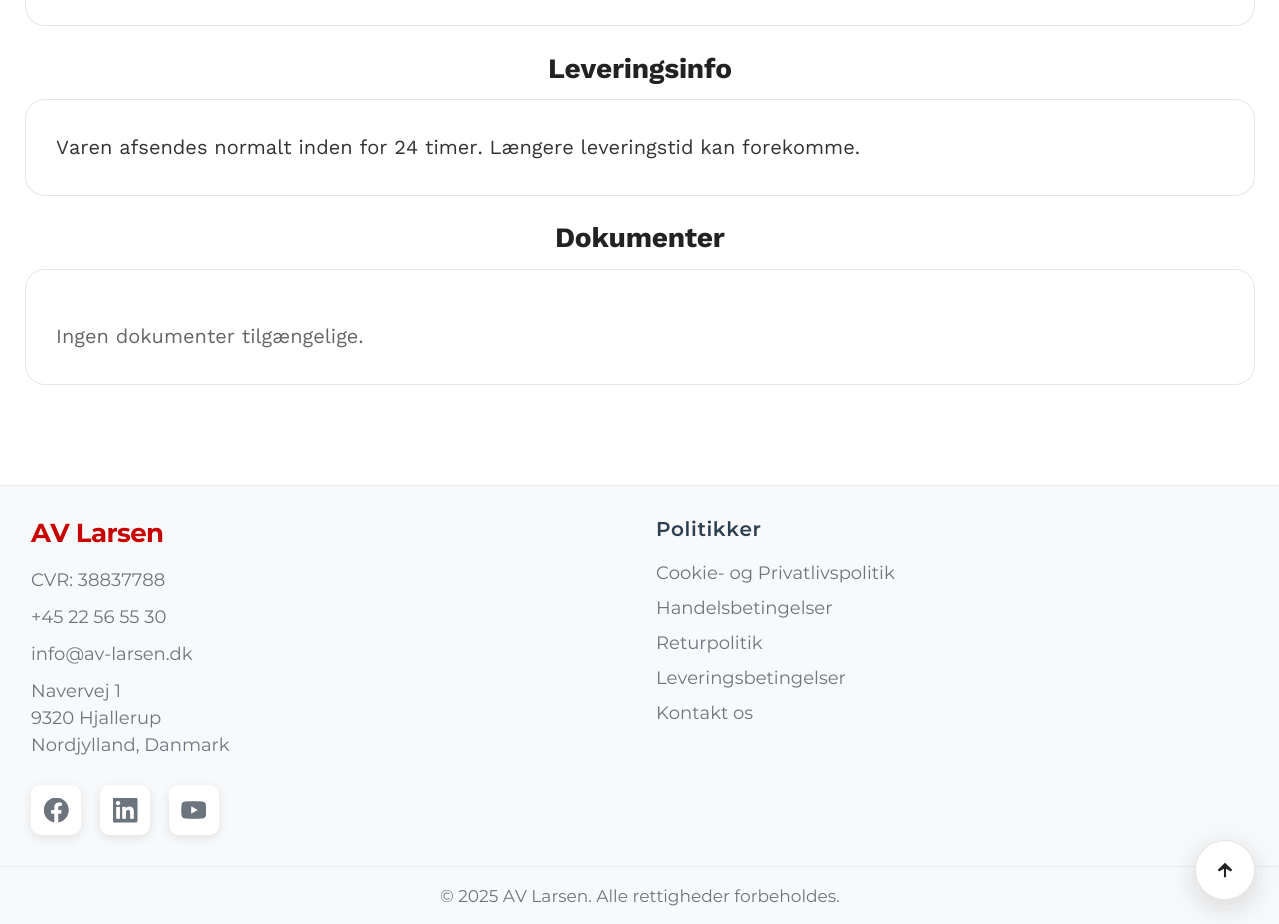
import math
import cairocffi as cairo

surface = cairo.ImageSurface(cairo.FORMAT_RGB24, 1279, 924)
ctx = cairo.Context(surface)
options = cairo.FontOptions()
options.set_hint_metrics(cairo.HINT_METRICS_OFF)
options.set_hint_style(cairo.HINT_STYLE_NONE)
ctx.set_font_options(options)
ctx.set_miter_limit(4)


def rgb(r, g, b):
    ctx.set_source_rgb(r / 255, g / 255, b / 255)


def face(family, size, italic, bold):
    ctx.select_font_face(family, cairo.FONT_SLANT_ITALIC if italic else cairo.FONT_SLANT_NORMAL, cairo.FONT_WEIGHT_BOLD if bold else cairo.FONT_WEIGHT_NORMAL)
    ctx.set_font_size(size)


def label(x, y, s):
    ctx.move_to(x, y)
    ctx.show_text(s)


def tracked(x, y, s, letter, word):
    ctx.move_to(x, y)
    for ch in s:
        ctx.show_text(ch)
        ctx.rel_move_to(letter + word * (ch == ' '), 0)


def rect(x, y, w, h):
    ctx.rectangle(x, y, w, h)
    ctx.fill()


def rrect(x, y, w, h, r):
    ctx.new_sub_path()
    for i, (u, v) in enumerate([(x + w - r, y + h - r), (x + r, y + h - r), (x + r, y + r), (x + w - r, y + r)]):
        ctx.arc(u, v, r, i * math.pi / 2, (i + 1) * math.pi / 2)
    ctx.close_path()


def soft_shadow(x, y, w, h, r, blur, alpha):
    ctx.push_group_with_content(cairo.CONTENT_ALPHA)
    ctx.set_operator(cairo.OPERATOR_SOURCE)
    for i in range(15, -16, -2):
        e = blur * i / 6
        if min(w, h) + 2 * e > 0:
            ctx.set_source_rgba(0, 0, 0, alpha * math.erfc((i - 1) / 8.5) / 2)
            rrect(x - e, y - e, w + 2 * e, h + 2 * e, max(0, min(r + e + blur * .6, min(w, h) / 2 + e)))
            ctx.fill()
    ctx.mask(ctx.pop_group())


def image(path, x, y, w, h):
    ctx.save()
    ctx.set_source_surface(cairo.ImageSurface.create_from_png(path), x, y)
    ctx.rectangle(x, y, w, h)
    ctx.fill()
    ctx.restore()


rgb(255, 255, 255)
ctx.paint()
rrect(25.5, -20.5, 1229, 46, 19.5)
rgb(229, 229, 229)
ctx.set_line_width(1)
ctx.stroke()
face('Work Sans', 28, 0, 1)
rgb(34, 34, 34)
tracked(548, 78, 'Leveringsinfo', -0.25, 0)
rrect(25.5, 99.5, 1229, 96, 19.5)
rgb(229, 229, 229)
ctx.stroke()
face('Work Sans', 20, 0, 0)
rgb(51, 51, 51)
label(56, 154, 'Varen afsendes normalt inden for 24 timer. Længere leveringstid kan forekomme.')
face('Work Sans', 28, 0, 1)
rgb(34, 34, 34)
tracked(555, 247, 'Dokumenter', -0.25, 0)
rrect(25.5, 269.5, 1229, 115, 19.5)
rgb(229, 229, 229)
ctx.stroke()
face('Work Sans', 20, 0, 0)
rgb(102, 102, 102)
label(56, 343, 'Ingen dokumenter tilgængelige.')
rgb(248, 249, 250)
rect(0, 486, 1279, 438)
rgb(233, 236, 239)
rect(0, 485, 1279, 1)
face('Montserrat', 26, 0, 1)
rgb(199, 0, 0)
tracked(31, 542, 'AV Larsen', -0.6, 0)
face('Montserrat', 18, 0, 0)
rgb(108, 117, 125)
label(31, 586, 'CVR: 38837788')
label(31, 623, '+45 22 56 55 30')
label(31, 660, 'info@av-larsen.dk')
label(31, 697, 'Navervej 1')
label(31, 724, '9320 Hjallerup')
label(31, 751, 'Nordjylland, Danmark')
rgb(0, 0, 0)
soft_shadow(31, 788, 50, 50, 10, 5, 0.1)
rgb(255, 255, 255)
rrect(31, 785, 50, 50, 10)
ctx.fill()
image('image0.png', 44, 798, 25, 25)
rgb(0, 0, 0)
soft_shadow(100, 788, 50, 50, 10, 5, 0.1)
rgb(255, 255, 255)
rrect(100, 785, 50, 50, 10)
ctx.fill()
image('image1.png', 113, 798, 25, 25)
rgb(0, 0, 0)
soft_shadow(169, 788, 50, 50, 10, 5, 0.1)
rgb(255, 255, 255)
rrect(169, 785, 50, 50, 10)
ctx.fill()
image('image2.png', 181, 801, 25, 18)
face('Montserrat SemiBold', 20, 0, 0)
rgb(44, 62, 80)
tracked(656, 536, 'Politikker', 0.6, 0)
face('Montserrat', 18, 0, 0)
rgb(108, 117, 125)
label(656, 579, 'Cookie- og Privatlivspolitik')
label(656, 614, 'Handelsbetingelser')
label(656, 649, 'Returpolitik')
label(656, 684, 'Leveringsbetingelser')
label(656, 719, 'Kontakt os')
rgb(233, 236, 239)
rect(0, 866, 1279, 1)
face('Montserrat', 17, 0, 0)
rgb(108, 117, 125)
label(440, 902, '© 2025 AV Larsen. Alle rettigheder forbeholdes.')
rgb(0, 0, 0)
soft_shadow(1195, 848, 60, 60, 30, 14, 0.12)
rgb(255, 255, 255)
ctx.arc(1225, 870, 29.5, 0, 2 * math.pi)
ctx.fill_preserve()
rgb(229, 229, 229)
ctx.stroke()
image('image3.png', 1217, 862, 16, 16)
surface.write_to_png('render.png')
